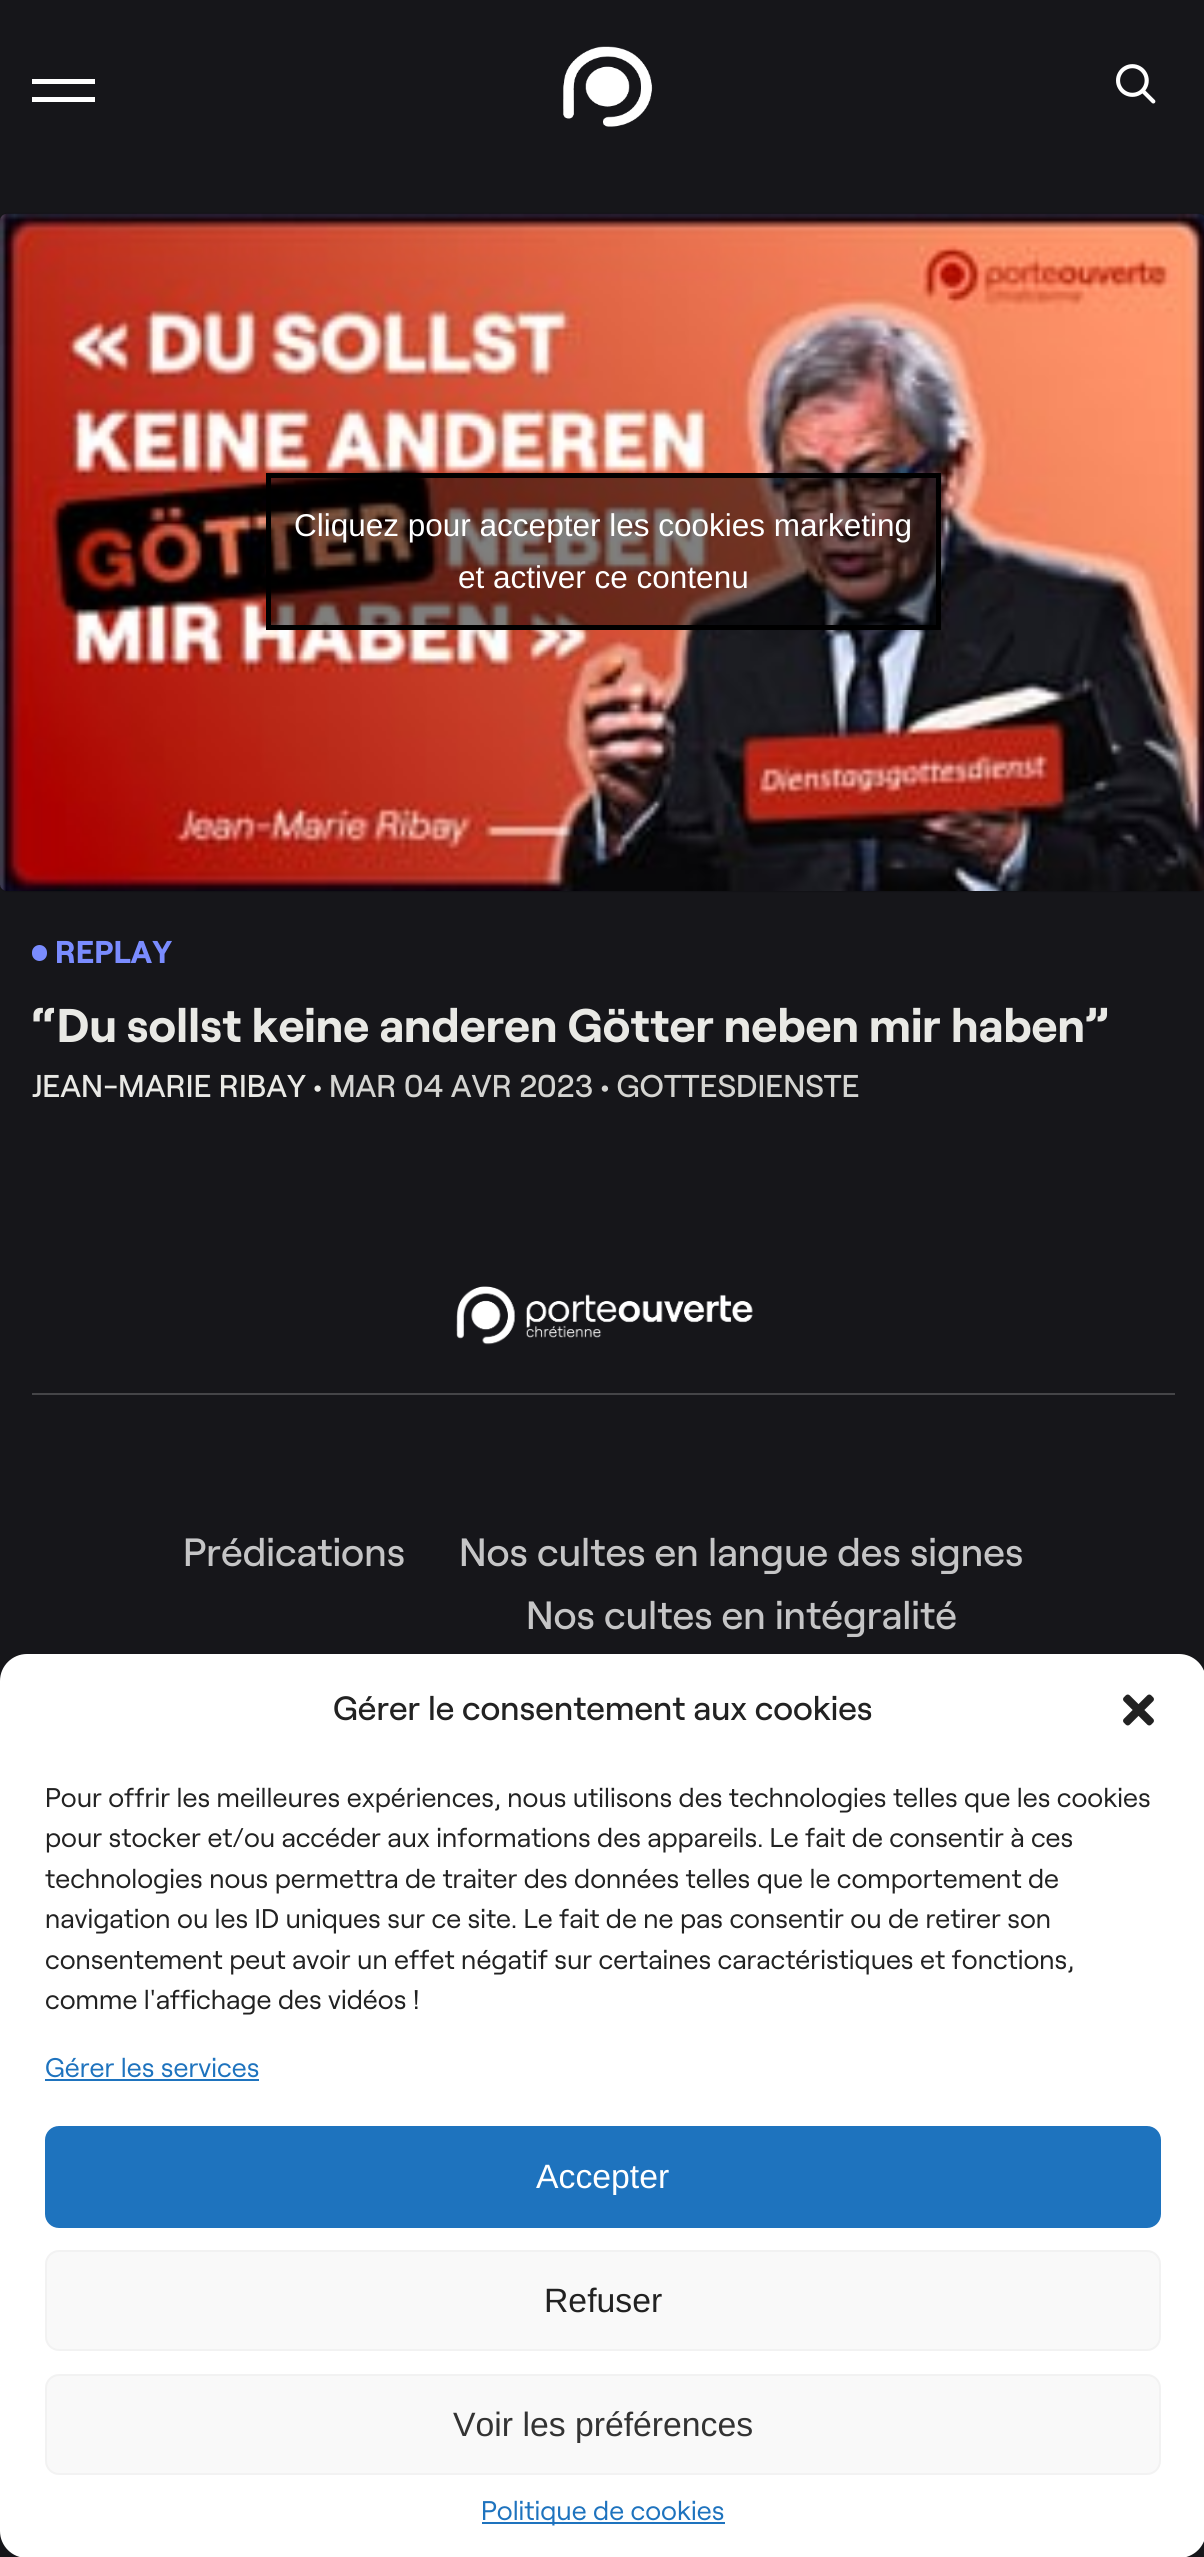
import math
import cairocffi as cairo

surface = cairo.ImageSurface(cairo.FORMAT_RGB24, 1204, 2557)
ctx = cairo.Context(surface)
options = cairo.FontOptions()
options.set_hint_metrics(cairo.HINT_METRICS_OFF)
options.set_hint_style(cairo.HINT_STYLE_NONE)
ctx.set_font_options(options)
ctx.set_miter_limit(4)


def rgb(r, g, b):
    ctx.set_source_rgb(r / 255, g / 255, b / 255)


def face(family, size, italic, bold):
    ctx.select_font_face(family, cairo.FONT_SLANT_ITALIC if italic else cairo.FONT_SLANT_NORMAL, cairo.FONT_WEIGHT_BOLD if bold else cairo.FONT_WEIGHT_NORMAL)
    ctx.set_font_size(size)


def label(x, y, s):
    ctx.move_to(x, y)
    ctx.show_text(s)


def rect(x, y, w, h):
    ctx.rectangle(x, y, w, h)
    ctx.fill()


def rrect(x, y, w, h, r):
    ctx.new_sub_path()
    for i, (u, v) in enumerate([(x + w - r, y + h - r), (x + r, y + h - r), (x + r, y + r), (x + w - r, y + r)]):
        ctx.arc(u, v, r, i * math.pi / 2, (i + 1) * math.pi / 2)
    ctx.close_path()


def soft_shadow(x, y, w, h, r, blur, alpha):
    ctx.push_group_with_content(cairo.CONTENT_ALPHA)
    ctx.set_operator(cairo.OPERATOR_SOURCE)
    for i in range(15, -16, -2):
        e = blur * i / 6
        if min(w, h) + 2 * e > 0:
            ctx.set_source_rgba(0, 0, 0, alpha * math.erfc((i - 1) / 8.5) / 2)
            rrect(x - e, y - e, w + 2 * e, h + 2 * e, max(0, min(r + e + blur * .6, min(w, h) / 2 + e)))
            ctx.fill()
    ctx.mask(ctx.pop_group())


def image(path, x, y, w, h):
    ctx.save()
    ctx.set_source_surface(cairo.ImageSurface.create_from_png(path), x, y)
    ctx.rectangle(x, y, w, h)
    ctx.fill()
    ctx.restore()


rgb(22, 22, 26)
ctx.paint()
rgb(255, 255, 255)
rect(32, 79, 63, 5)
rect(32, 97, 63, 5)
image('image0.png', 563, 46, 90, 81)
image('image1.png', 1116, 64, 40, 40)
rgb(0, 0, 0)
soft_shadow(0, 214, 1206, 677, 7, 1, 0.5)
image('image2.png', 0, 213, 1204, 678)
gradient = cairo.LinearGradient(603, 0, 603, 230)
gradient.add_color_stop_rgba(0, 0.086, 0.086, 0.102, 1)
gradient.add_color_stop_rgba(0.54, 0.086, 0.086, 0.102, 0.8)
gradient.add_color_stop_rgba(1, 0.086, 0.086, 0.102, 0)
ctx.set_source(gradient)
rect(0, 214, 1199, 13)
ctx.set_source_rgba(0, 0, 0, 0.5)
ctx.rectangle(268.5, 475.5, 670, 152)
ctx.fill_preserve()
rgb(0, 0, 0)
ctx.set_line_width(5)
ctx.stroke()
face('Liberation Sans', 31.5, 0, 0)
rgb(255, 255, 255)
label(294, 536, 'Cliquez pour accepter les cookies marketing')
label(458, 588, 'et activer ce contenu')
rgb(122, 140, 255)
rrect(32, 945, 15, 16, 7.5)
ctx.fill()
face('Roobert', 31.5, 0, 1)
label(55, 963, 'REPLAY')
face('Roobert', 47.25, 0, 1)
rgb(233, 233, 229)
label(32, 1042, '“Du sollst keine anderen Götter neben mir haben”')
face('Roobert Medium', 31.5, 0, 0)
label(32, 1097, 'JEAN-MARIE RIBAY •')
rgb(212, 212, 209)
label(329, 1097, 'MAR 04 AVR 2023 • GOTTESDIENSTE')
rgb(69, 69, 72)
rect(32, 1393, 1143, 2)
image('image3.png', 456, 1286, 297, 59)
face('Roobert Medium', 39.4, 0, 0)
rgb(197, 197, 198)
label(183, 1566, 'Prédications')
label(459, 1566, 'Nos cultes en langue des signes')
label(526, 1629, 'Nos cultes en intégralité')
rgb(255, 255, 255)
rrect(0, 1654, 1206, 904, 27)
ctx.fill()
face('Roobert Medium', 33.75, 0, 0)
rgb(34, 34, 34)
label(333, 1720, 'Gérer le consentement aux cookies')
image('image4.png', 1123, 1694, 31, 32)
face('Roobert', 27, 0, 0)
label(45, 1807, 'Pour offrir les meilleures expériences, nous utilisons des technologies telles que les cookies')
label(45, 1847, 'pour stocker et/ou accéder aux informations des appareils. Le fait de consentir à ces')
label(45, 1888, 'technologies nous permettra de traiter des données telles que le comportement de')
label(45, 1928, 'navigation ou les ID uniques sur ce site. Le fait de ne pas consentir ou de retirer son')
label(45, 1969, 'consentement peut avoir un effet négatif sur certaines caractéristiques et fonctions,')
label(45, 2009, 'comme l\'affichage des vidéos !')
rgb(30, 115, 190)
label(45, 2077, 'Gérer les services')
rect(45, 2079, 214, 2)
rrect(46, 2127, 1114, 100, 13)
ctx.fill_preserve()
ctx.set_line_width(2)
ctx.stroke()
face('Liberation Sans', 33.75, 0, 0)
rgb(255, 255, 255)
label(536, 2188, 'Accepter')
rgb(249, 249, 249)
rrect(46, 2251, 1114, 99, 13)
ctx.fill_preserve()
rgb(242, 242, 242)
ctx.stroke()
rgb(34, 34, 34)
label(544, 2312, 'Refuser')
rgb(249, 249, 249)
rrect(46, 2375, 1114, 99, 13)
ctx.fill_preserve()
rgb(242, 242, 242)
ctx.stroke()
rgb(51, 51, 51)
label(453, 2436, 'Voir les préférences')
rgb(30, 115, 190)
rect(482, 2522, 243, 2)
face('Roobert', 27, 0, 0)
label(481, 2520, 'Politique de cookies')
surface.write_to_png('render.png')
